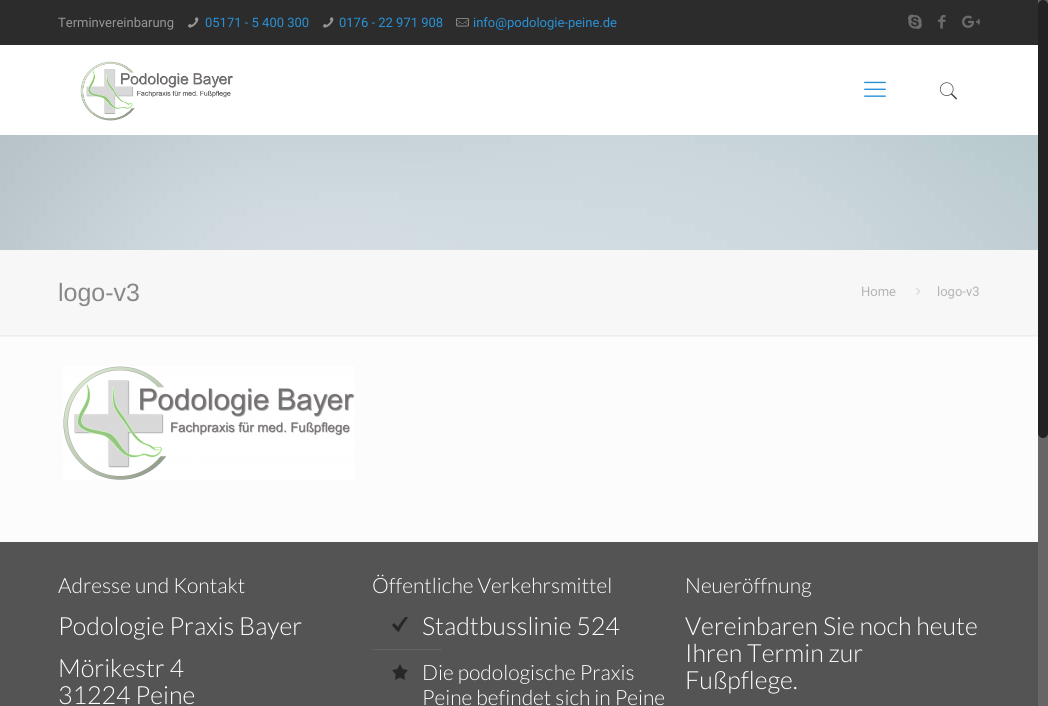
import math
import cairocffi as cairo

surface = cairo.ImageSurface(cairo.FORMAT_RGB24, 1048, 706)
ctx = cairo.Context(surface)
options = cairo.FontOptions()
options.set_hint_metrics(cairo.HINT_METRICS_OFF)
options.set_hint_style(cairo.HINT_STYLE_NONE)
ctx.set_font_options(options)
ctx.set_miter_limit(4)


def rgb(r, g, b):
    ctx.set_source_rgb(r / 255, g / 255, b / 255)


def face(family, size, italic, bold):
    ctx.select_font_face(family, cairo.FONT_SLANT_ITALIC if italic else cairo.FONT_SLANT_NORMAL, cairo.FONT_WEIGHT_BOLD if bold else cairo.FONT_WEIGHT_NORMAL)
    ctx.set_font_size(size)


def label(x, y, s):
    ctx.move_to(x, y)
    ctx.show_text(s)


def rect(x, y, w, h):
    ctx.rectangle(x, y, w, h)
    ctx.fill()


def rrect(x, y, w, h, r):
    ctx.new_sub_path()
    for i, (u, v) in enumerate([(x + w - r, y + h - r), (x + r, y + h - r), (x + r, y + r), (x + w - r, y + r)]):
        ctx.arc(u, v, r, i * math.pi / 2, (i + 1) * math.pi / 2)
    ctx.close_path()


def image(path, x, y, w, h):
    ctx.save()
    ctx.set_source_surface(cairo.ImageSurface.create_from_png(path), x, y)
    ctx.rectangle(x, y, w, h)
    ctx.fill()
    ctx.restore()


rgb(252, 252, 252)
ctx.paint()
image('image0.png', 0, 135, 1038, 115)
rgb(44, 44, 44)
rect(0, 0, 1038, 45)
face('Roboto', 13, 0, 0)
rgb(150, 150, 150)
label(58, 27, 'Terminvereinbarung')
image('image1.png', 188, 17, 11, 11)
rgb(41, 145, 214)
label(205, 27, '05171 - 5 400 300')
image('image1.png', 323, 17, 11, 11)
label(339, 27, '0176 - 22 971 908')
image('image2.png', 456, 18, 13, 9)
label(473, 27, 'info@podologie-peine.de')
image('image3.png', 908, 14, 14, 15)
image('image4.png', 938, 15, 8, 14)
image('image5.png', 962, 15, 18, 13)
rgb(255, 255, 255)
rect(0, 45, 1038, 90)
image('image6.png', 80, 61, 153, 60)
image('image7.png', 864, 81, 22, 16)
image('image8.png', 939, 82, 19, 18)
rgb(247, 247, 247)
rect(0, 250, 1038, 85)
face('Liberation Sans', 25, 0, 0)
rgb(136, 136, 136)
label(58, 301, 'logo-v3')
face('Roboto', 13, 0, 0)
rgb(180, 180, 180)
label(861, 296, 'Home')
image('image9.png', 916, 287, 5, 8)
label(937, 296, 'logo-v3')
image('image10.png', 0, 335, 1038, 2)
image('image11.png', 63, 366, 292, 114)
rgb(84, 84, 84)
rect(0, 542, 1038, 164)
face('Lato Light', 21, 0, 0)
rgb(255, 255, 255)
label(58, 593, 'Adresse und Kontakt')
face('Lato Light', 25, 0, 0)
label(58, 635, 'Podologie Praxis Bayer')
label(58, 677, 'Mörikestr 4')
label(58, 704, '31224 Peine')
face('Lato Light', 21, 0, 0)
label(372, 593, 'Öffentliche Verkehrsmittel')
image('image12.png', 392, 617, 16, 15)
face('Lato Light', 25, 0, 0)
label(422, 635, 'Stadtbusslinie 524')
rgb(98, 98, 98)
rect(372, 649, 70, 1)
image('image13.png', 392, 664, 16, 16)
face('Lato Light', 21, 0, 0)
rgb(255, 255, 255)
label(422, 680, 'Die podologische Praxis')
label(422, 705, 'Peine befindet sich in Peine')
label(685, 593, 'Neueröffnung')
face('Lato Light', 25, 0, 0)
label(685, 635, 'Vereinbaren Sie noch heute')
label(685, 662, 'Ihren Termin zur')
label(685, 689, 'Fußpflege.')
rgb(102, 102, 102)
rect(1038, 0, 10, 706)
rgb(34, 34, 34)
rrect(1038, 0, 10, 438, 5)
ctx.fill()
surface.write_to_png('render.png')
